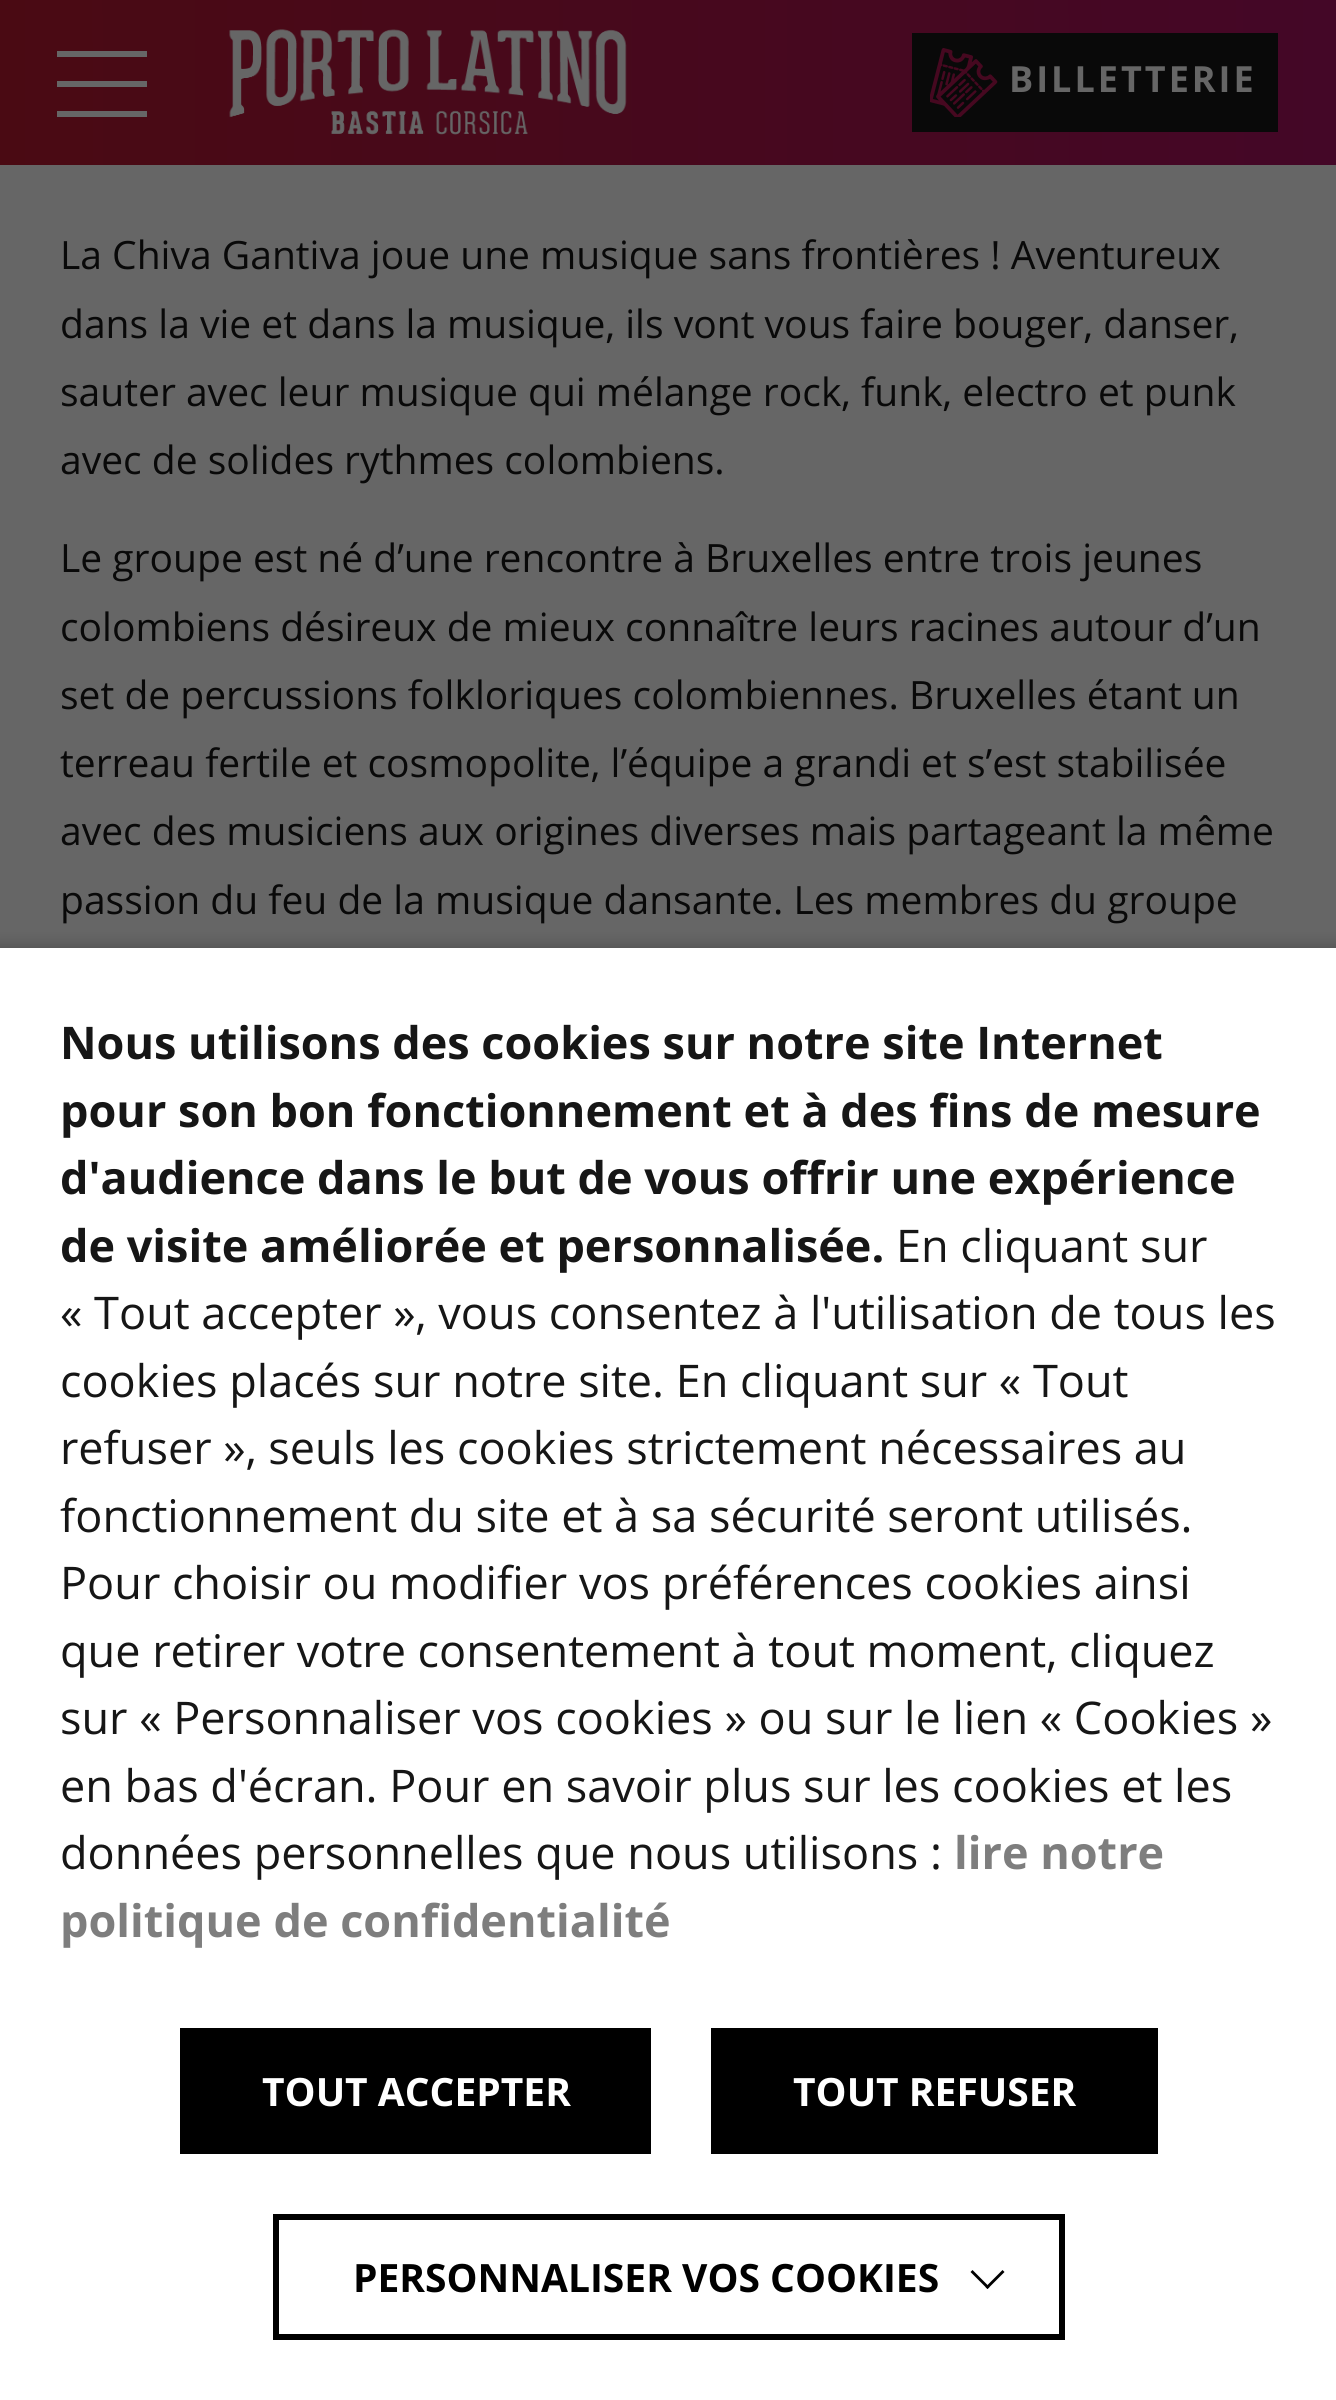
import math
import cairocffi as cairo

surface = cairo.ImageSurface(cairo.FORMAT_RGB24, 1336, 2400)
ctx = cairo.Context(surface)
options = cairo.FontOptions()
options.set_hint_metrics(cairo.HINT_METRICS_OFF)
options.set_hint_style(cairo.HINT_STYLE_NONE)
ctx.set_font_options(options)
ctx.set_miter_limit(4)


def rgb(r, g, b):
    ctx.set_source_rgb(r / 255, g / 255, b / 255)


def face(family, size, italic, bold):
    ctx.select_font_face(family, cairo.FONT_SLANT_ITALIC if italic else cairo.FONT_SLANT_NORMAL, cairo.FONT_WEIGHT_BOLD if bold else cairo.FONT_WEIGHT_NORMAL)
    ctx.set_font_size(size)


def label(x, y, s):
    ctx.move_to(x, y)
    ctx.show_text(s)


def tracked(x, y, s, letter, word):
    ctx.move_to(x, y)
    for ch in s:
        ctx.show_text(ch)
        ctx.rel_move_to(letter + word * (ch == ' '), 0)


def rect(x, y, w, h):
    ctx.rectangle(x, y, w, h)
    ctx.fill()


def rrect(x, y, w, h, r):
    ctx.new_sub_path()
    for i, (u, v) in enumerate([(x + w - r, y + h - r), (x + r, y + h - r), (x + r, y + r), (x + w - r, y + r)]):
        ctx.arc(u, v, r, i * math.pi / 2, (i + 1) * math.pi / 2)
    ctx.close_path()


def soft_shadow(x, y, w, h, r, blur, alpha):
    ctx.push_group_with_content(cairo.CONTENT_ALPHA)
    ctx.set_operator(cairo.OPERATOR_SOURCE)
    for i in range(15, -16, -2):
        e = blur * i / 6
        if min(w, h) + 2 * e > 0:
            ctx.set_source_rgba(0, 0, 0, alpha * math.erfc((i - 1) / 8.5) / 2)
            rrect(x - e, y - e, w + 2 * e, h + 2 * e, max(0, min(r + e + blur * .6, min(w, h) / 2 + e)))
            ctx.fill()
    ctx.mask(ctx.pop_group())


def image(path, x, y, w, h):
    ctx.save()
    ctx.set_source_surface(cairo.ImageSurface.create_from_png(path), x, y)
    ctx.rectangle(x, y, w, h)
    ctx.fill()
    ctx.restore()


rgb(102, 102, 102)
ctx.paint()
gradient = cairo.LinearGradient(0, 83, 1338, 82)
gradient.add_color_stop_rgba(0, 0.29, 0.039, 0.075, 1)
gradient.add_color_stop_rgba(1, 0.267, 0.027, 0.153, 1)
ctx.set_source(gradient)
rect(0, 0, 1336, 165)
rgb(102, 102, 102)
rect(57, 51, 90, 6)
rect(57, 81, 90, 6)
rect(57, 111, 90, 6)
image('image0.png', 229, 29, 398, 106)
rgb(9, 9, 9)
rect(912, 33, 366, 99)
image('image1.png', 930, 48, 68, 69)
face('Open Sans', 36, 0, 1)
rgb(102, 102, 102)
tracked(1009, 92, 'BILLETTERIE', 3, 0)
face('Open Sans', 39, 0, 0)
rgb(9, 9, 9)
label(60, 269, 'La Chiva Gantiva joue une musique sans frontières ! Aventureux')
label(60, 338, 'dans la vie et dans la musique, ils vont vous faire bouger, danser,')
label(60, 406, 'sauter avec leur musique qui mélange rock, funk, electro et punk')
label(60, 474, 'avec de solides rythmes colombiens.')
label(60, 572, 'Le groupe est né d’une rencontre à Bruxelles entre trois jeunes')
label(60, 641, 'colombiens désireux de mieux connaître leurs racines autour d’un')
label(60, 709, 'set de percussions folkloriques colombiennes. Bruxelles étant un')
label(60, 777, 'terreau fertile et cosmopolite, l’équipe a grandi et s’est stabilisée')
label(60, 845, 'avec des musiciens aux origines diverses mais partageant la même')
label(60, 914, 'passion du feu de la musique dansante. Les membres du groupe')
rgb(0, 0, 0)
soft_shadow(-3, 945, 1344, 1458, 0, 7.5, 0.2)
rgb(255, 255, 255)
rect(0, 948, 1336, 1452)
face('Open Sans', 45, 0, 1)
rgb(22, 22, 22)
label(60, 1059, 'Nous utilisons des cookies sur notre site Internet')
label(60, 1127, 'pour son bon fonctionnement et à des fins de mesure')
label(60, 1194, 'd\'audience dans le but de vous offrir une expérience')
label(60, 1262, 'de visite améliorée et personnalisée.')
face('Open Sans', 45, 0, 0)
label(896, 1262, 'En cliquant sur')
label(60, 1329, '« Tout accepter », vous consentez à l\'utilisation de tous les')
label(60, 1397, 'cookies placés sur notre site. En cliquant sur « Tout')
label(60, 1464, 'refuser », seuls les cookies strictement nécessaires au')
label(60, 1532, 'fonctionnement du site et à sa sécurité seront utilisés.')
label(60, 1599, 'Pour choisir ou modifier vos préférences cookies ainsi')
label(60, 1667, 'que retirer votre consentement à tout moment, cliquez')
label(60, 1734, 'sur « Personnaliser vos cookies » ou sur le lien « Cookies »')
label(60, 1802, 'en bas d\'écran. Pour en savoir plus sur les cookies et les')
label(60, 1869, 'données personnelles que nous utilisons :')
face('Open Sans', 45, 0, 1)
rgb(126, 126, 126)
label(954, 1869, 'lire notre')
label(60, 1937, 'politique de confidentialité')
rgb(0, 0, 0)
rect(180, 2028, 471, 126)
face('Open Sans', 39, 0, 1)
rgb(255, 255, 255)
label(262, 2106, 'TOUT ACCEPTER')
rgb(0, 0, 0)
rect(711, 2028, 447, 126)
rgb(255, 255, 255)
label(793, 2106, 'TOUT REFUSER')
ctx.rectangle(276, 2217, 786, 120)
rgb(0, 0, 0)
ctx.set_line_width(6)
ctx.stroke()
label(353, 2292, 'PERSONNALISER VOS COOKIES')
ctx.new_path()
ctx.move_to(1004.5, 2272)
ctx.line_to(987.5, 2289)
ctx.line_to(985.5, 2287)
ctx.line_to(1002.5, 2270)
ctx.close_path()
ctx.fill()
ctx.new_path()
ctx.move_to(989.5, 2287)
ctx.line_to(987.5, 2289)
ctx.line_to(970.5, 2272)
ctx.line_to(972.5, 2270)
ctx.close_path()
ctx.fill()
surface.write_to_png('render.png')
